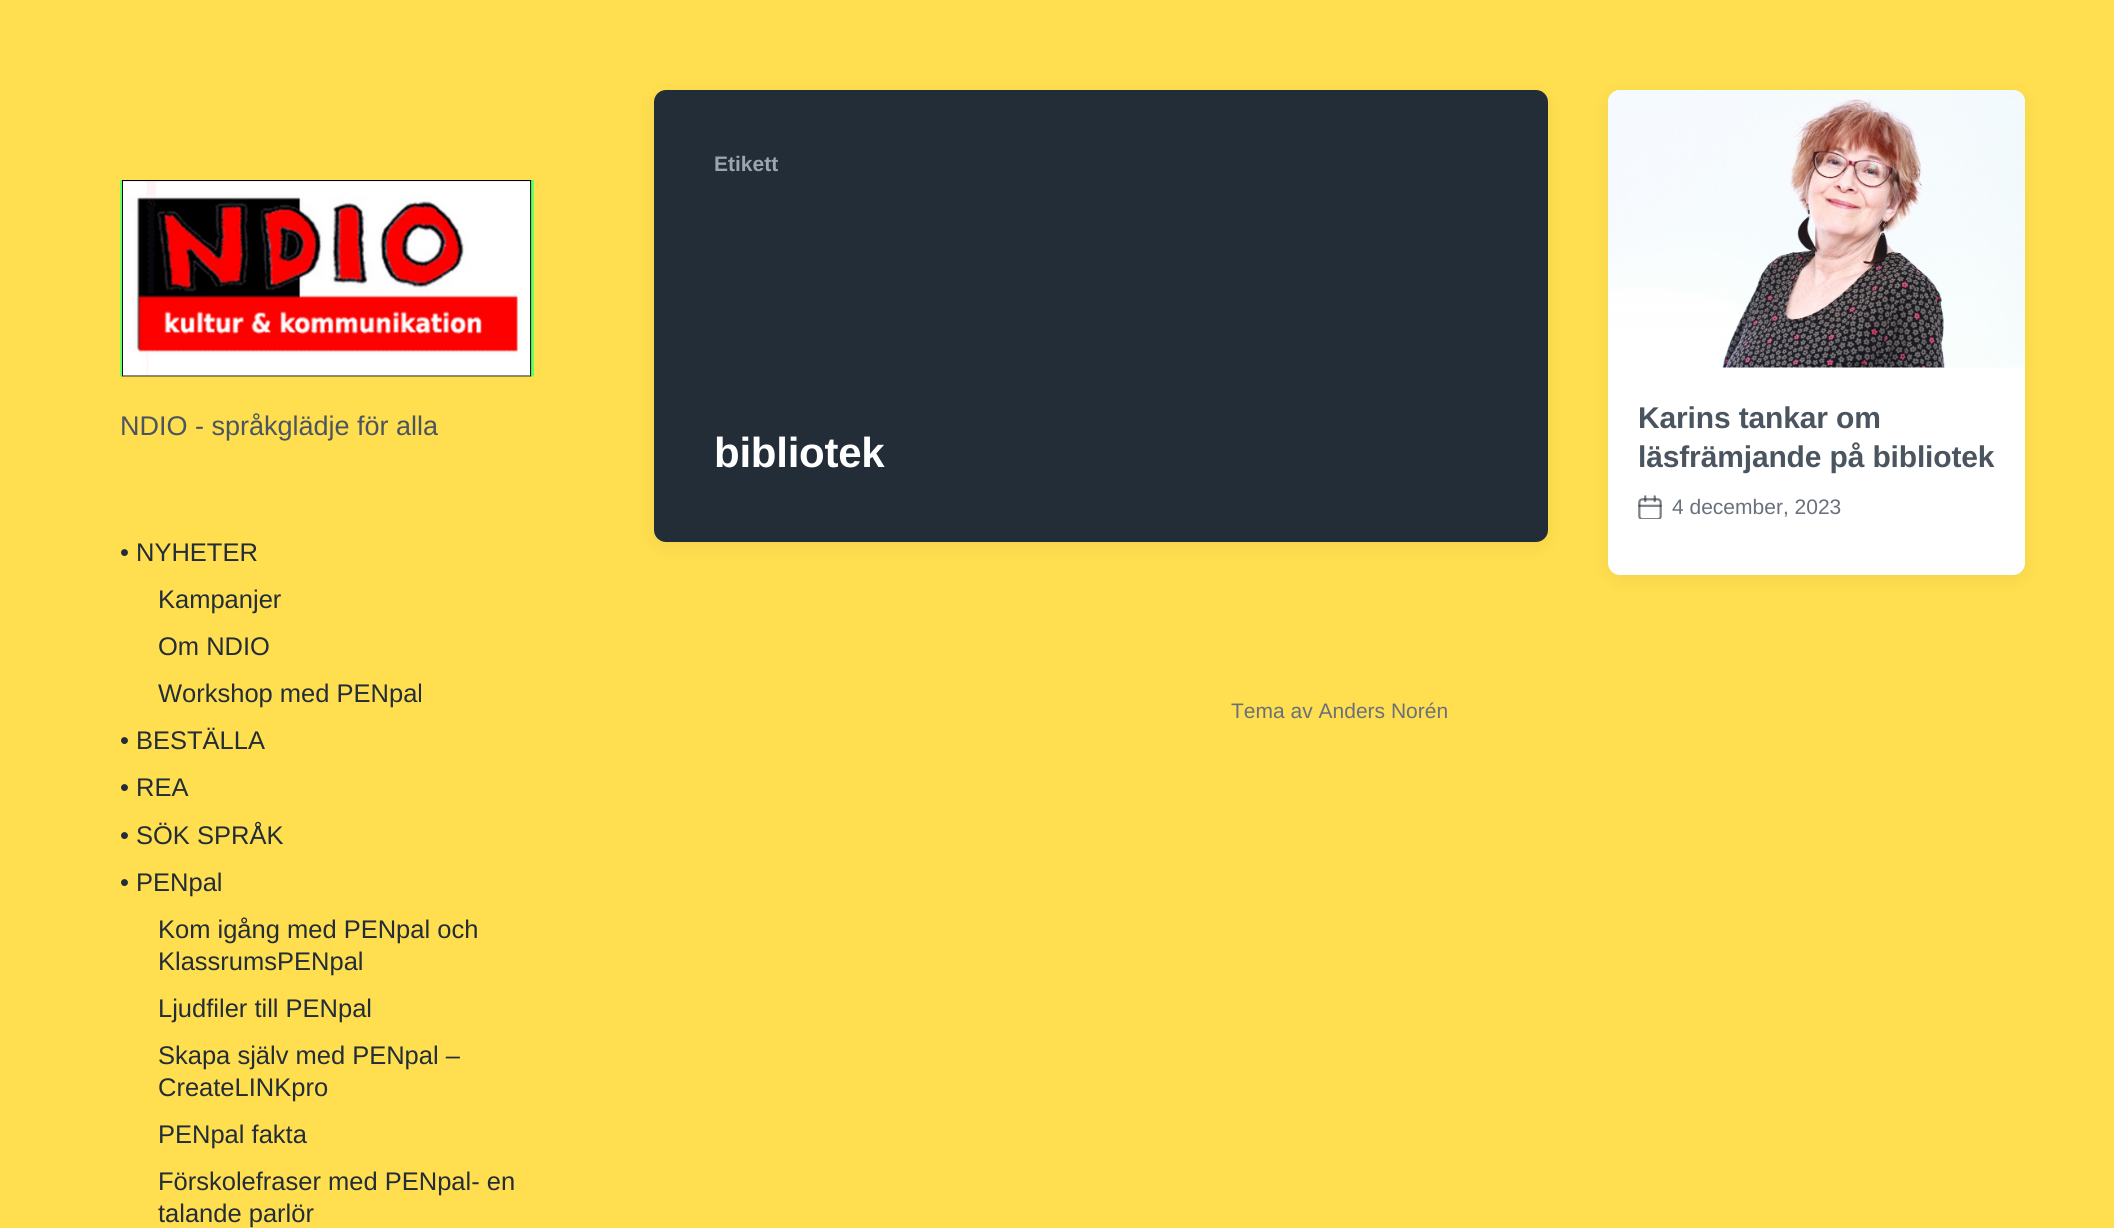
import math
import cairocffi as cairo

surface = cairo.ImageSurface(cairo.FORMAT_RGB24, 2114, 1228)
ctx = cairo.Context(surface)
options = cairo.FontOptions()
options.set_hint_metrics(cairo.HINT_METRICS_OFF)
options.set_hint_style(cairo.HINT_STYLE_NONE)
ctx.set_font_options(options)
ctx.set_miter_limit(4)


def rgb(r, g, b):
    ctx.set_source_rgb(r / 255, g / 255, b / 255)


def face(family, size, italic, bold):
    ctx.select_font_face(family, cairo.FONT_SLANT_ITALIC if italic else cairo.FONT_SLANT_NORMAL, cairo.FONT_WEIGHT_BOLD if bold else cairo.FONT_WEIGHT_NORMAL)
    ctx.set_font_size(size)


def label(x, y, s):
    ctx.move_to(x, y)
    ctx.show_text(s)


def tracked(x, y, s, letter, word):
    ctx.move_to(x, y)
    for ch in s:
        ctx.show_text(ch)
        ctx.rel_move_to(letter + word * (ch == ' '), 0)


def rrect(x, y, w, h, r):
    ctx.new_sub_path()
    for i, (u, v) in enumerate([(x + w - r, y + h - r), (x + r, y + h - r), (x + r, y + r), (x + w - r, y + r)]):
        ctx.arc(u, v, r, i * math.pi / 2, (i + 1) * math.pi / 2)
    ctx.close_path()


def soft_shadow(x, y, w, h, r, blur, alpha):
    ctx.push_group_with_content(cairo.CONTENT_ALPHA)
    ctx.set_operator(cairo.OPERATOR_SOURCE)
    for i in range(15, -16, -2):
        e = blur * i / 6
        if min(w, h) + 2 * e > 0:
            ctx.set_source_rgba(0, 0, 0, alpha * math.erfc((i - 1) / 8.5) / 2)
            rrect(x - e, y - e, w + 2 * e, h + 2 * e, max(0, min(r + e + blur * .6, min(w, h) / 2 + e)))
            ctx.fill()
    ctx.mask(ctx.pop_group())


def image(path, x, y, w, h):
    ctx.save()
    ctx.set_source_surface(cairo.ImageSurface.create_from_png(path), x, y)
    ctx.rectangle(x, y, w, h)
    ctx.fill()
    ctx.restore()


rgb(255, 222, 79)
ctx.paint()
rgb(5, 10, 15)
soft_shadow(654, 95, 894, 451, 12, 9, 0.05)
rgb(35, 45, 55)
rrect(654, 90, 894, 452, 12)
ctx.fill()
face('Liberation Sans', 21, 0, 1)
rgb(155, 165, 175)
label(714, 171, 'Etikett')
face('Liberation Sans', 42, 0, 1)
rgb(255, 255, 255)
tracked(714, 467, 'bibliotek', -0.25, 0)
rgb(5, 10, 15)
soft_shadow(1608, 95, 417, 484, 12, 9, 0.05)
rgb(255, 255, 255)
rrect(1608, 90, 417, 485, 12)
ctx.fill()
image('image0.png', 1608, 90, 417, 278)
face('Liberation Sans', 30, 0, 1)
rgb(75, 85, 95)
tracked(1638, 428, 'Karins tankar om', -0.15, 0)
tracked(1638, 467, 'läsfrämjande på bibliotek', -0.15, 0)
image('image1.png', 1638, 495, 24, 24)
face('Liberation Sans', 21, 0, 0)
rgb(104, 113, 123)
label(1672, 514, '4 december, 2023')
image('image2.png', 120, 180, 414, 197)
face('Liberation Sans', 27, 0, 0)
rgb(75, 85, 95)
label(120, 435, 'NDIO - språkglädje för alla')
face('Liberation Sans', 25.5, 0, 0)
rgb(35, 45, 55)
label(120, 561, '• NYHETER')
label(158, 608, 'Kampanjer')
label(158, 655, 'Om NDIO')
label(158, 702, 'Workshop med PENpal')
label(120, 749, '• BESTÄLLA')
label(120, 796, '• REA')
label(120, 844, '• SÖK SPRÅK')
label(120, 891, '• PENpal')
label(158, 938, 'Kom igång med PENpal och')
label(158, 970, 'KlassrumsPENpal')
label(158, 1017, 'Ljudfiler till PENpal')
label(158, 1064, 'Skapa själv med PENpal –')
label(158, 1096, 'CreateLINKpro')
label(158, 1143, 'PENpal fakta')
label(158, 1190, 'Förskolefraser med PENpal- en')
label(158, 1222, 'talande parlör')
face('Liberation Sans', 21, 0, 0)
rgb(104, 113, 123)
label(1231, 718, 'Tema av Anders Norén')
surface.write_to_png('render.png')
